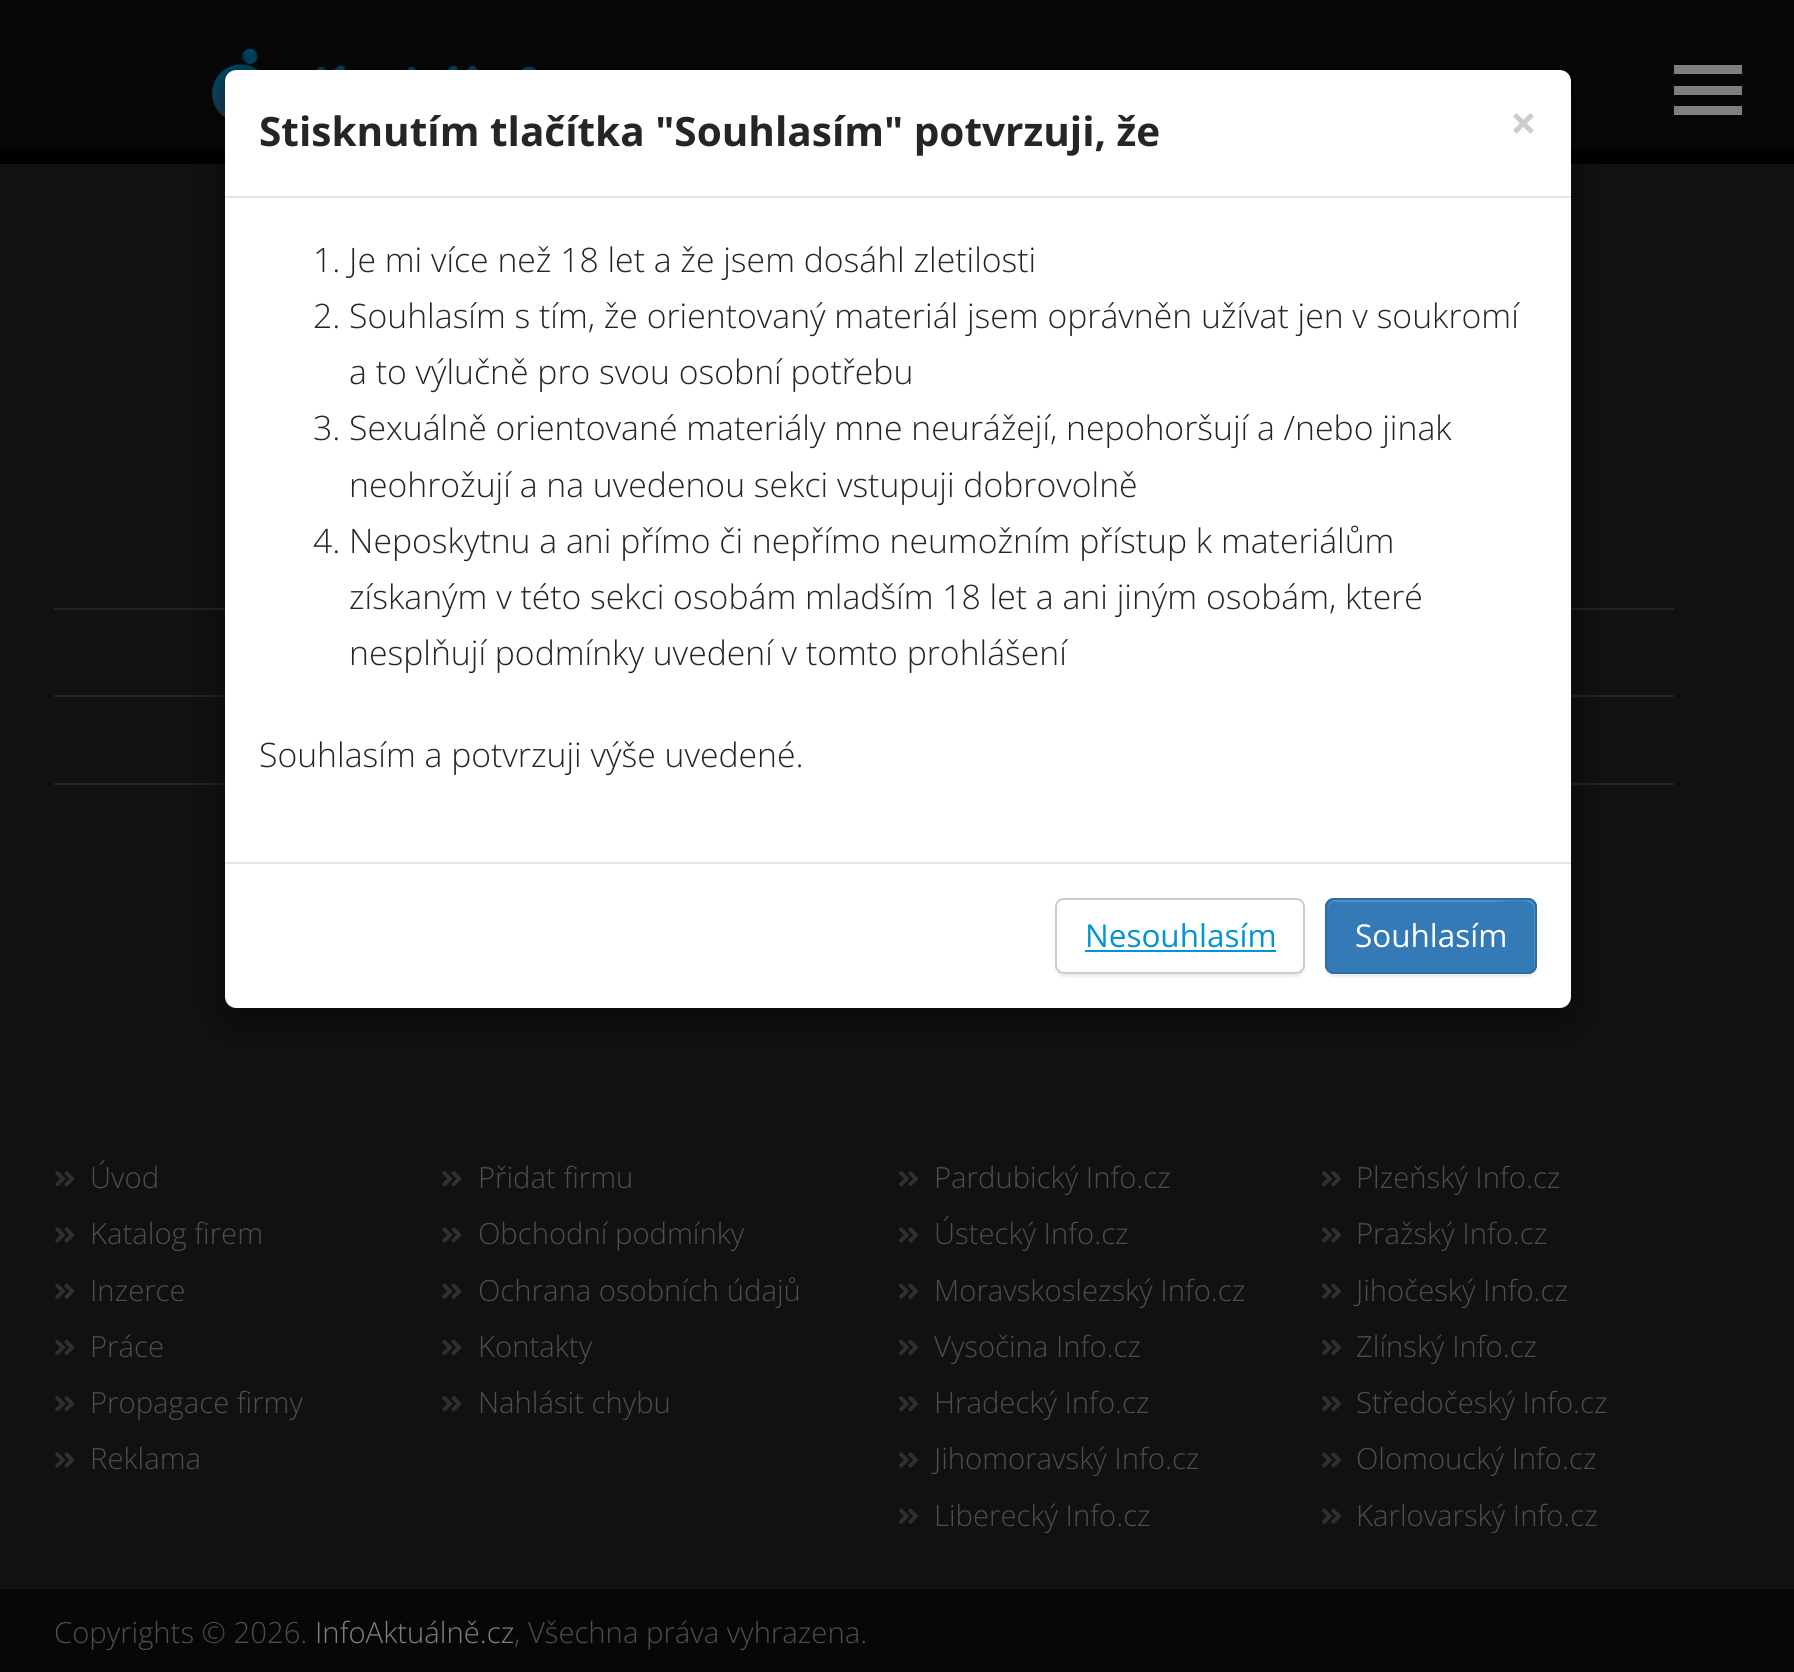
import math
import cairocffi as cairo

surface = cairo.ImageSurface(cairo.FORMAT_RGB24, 1794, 1672)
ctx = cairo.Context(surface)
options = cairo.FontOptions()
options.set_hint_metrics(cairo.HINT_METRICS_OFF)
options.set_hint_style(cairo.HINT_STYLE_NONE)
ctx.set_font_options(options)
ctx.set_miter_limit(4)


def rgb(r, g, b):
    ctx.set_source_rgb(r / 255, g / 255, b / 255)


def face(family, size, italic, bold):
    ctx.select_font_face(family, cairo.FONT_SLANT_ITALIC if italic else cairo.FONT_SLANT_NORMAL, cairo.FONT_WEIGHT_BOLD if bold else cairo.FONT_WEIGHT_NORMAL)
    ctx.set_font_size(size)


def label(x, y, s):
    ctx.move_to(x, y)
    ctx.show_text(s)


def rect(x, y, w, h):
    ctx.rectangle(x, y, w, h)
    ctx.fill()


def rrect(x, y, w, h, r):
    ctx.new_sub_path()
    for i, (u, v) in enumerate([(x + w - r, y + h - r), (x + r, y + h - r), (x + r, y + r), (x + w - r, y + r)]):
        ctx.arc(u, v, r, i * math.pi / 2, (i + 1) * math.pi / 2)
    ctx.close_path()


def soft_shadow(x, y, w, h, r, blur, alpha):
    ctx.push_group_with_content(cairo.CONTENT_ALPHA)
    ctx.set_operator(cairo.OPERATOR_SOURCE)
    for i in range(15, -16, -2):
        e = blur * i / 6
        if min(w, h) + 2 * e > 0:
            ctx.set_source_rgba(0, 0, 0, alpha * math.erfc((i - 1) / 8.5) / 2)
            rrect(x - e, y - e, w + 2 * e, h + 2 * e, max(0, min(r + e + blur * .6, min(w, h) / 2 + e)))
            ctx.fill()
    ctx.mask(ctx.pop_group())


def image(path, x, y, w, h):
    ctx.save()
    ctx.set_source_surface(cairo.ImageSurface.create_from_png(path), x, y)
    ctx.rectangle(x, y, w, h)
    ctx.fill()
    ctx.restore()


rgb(7, 7, 7)
ctx.paint()
image('image0.png', 211, 48, 326, 75)
rgb(128, 128, 128)
rect(1674, 65, 68, 9)
rect(1674, 86, 68, 9)
rect(1674, 106, 68, 9)
rgb(17, 17, 17)
rect(0, 164, 1794, 1425)
rgb(1, 1, 1)
rect(0, 149, 1794, 15)
rgb(36, 36, 36)
rect(54, 608, 1620, 2)
rect(54, 695, 1620, 2)
rect(54, 783, 1620, 2)
ctx.save()
ctx.set_fill_rule(cairo.FILL_RULE_EVEN_ODD)
ctx.new_path()
ctx.move_to(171, 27)
ctx.line_to(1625, 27)
ctx.line_to(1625, 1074)
ctx.line_to(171, 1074)
ctx.close_path()
ctx.move_to(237, 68)
ctx.line_to(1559, 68)
ctx.curve_to(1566.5, 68, 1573, 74.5, 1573, 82)
ctx.line_to(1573, 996)
ctx.curve_to(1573, 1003.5, 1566.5, 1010, 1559, 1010)
ctx.line_to(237, 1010)
ctx.curve_to(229.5, 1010, 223, 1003.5, 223, 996)
ctx.line_to(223, 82)
ctx.curve_to(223, 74.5, 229.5, 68, 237, 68)
ctx.close_path()
ctx.clip()
rgb(0, 0, 0)
soft_shadow(223, 79, 1350, 943, 14, 17, 0.5)
ctx.restore()
rgb(255, 255, 255)
rrect(225, 70, 1346, 938, 11)
ctx.fill()
rrect(224, 69, 1348, 940, 13)
ctx.set_source_rgba(0, 0, 0, 0.2)
ctx.stroke()
rgb(229, 229, 229)
rect(225, 196, 1346, 2)
face('Open Sans', 40.5, 0, 1)
rgb(37, 37, 37)
label(259, 146, 'Stisknutím tlačítka "Souhlasím" potvrzuji, že')
face('Open Sans', 47, 0, 1)
rgb(204, 204, 204)
label(1510, 140, '×')
face('Open Sans Light', 33.75, 0, 0)
rgb(37, 37, 37)
label(313, 272, '1. Je mi více než 18 let a že jsem dosáhl zletilosti')
label(313, 328, '2. Souhlasím s tím, že orientovaný materiál jsem oprávněn užívat jen v soukromí')
label(349, 384, 'a to výlučně pro svou osobní potřebu')
label(313, 440, '3. Sexuálně orientované materiály mne neurážejí, nepohoršují a /nebo jinak')
label(349, 497, 'neohrožují a na uvedenou sekci vstupuji dobrovolně')
label(313, 553, '4. Neposkytnu a ani přímo či nepřímo neumožním přístup k materiálům')
label(349, 609, 'získaným v této sekci osobám mladším 18 let a ani jiným osobám, které')
label(349, 665, 'nesplňují podmínky uvedení v tomto prohlášení')
label(259, 767, 'Souhlasím a potvrzuji výše uvedené.')
rgb(229, 229, 229)
rect(225, 862, 1346, 2)
rgb(0, 0, 0)
soft_shadow(1055, 900, 250, 77, 9, 1, 0.07)
rgb(255, 255, 255)
rrect(1056, 899, 248, 74, 8)
ctx.fill_preserve()
rgb(204, 204, 204)
ctx.stroke()
face('Open Sans', 31.5, 0, 0)
rgb(3, 148, 209)
label(1085, 947, 'Nesouhlasím')
rect(1085, 950, 191, 2)
rgb(0, 0, 0)
soft_shadow(1325, 900, 212, 77, 9, 1, 0.07)
rgb(51, 122, 183)
rrect(1325, 898, 212, 76, 9)
ctx.fill()
rgb(82, 142, 194)
ctx.new_path()
ctx.move_to(1334, 902)
ctx.line_to(1496, 902)
ctx.curve_to(1505, 902, 1532, 896, 1534, 908)
ctx.line_to(1534, 969)
ctx.curve_to(1535, 968, 1535, 966, 1535, 965)
ctx.line_to(1535, 907)
ctx.curve_to(1535, 903, 1532, 900, 1528, 900)
ctx.line_to(1335, 900)
ctx.curve_to(1331, 900, 1328, 903, 1328, 907)
ctx.line_to(1328, 909)
ctx.curve_to(1328, 905, 1331, 902, 1334, 902)
ctx.close_path()
ctx.fill()
rrect(1326, 899, 210, 74, 8)
rgb(46, 109, 164)
ctx.stroke()
rgb(255, 255, 255)
label(1355, 947, 'Souhlasím')
image('image1.png', 55, 1171, 20, 16)
face('Open Sans Light', 29.25, 0, 0)
rgb(77, 77, 77)
label(90, 1188, 'Úvod')
image('image2.png', 55, 1227, 20, 16)
label(90, 1244, 'Katalog firem')
image('image3.png', 55, 1283, 20, 16)
label(90, 1301, 'Inzerce')
image('image4.png', 55, 1339, 20, 17)
label(90, 1357, 'Práce')
image('image1.png', 55, 1396, 20, 16)
label(90, 1413, 'Propagace firmy')
image('image2.png', 55, 1452, 20, 16)
label(90, 1469, 'Reklama')
image('image1.png', 442, 1171, 20, 16)
label(478, 1188, 'Přidat firmu')
image('image2.png', 442, 1227, 20, 16)
label(478, 1244, 'Obchodní podmínky')
image('image3.png', 442, 1283, 20, 16)
label(478, 1301, 'Ochrana osobních údajů')
image('image4.png', 442, 1339, 20, 17)
label(478, 1357, 'Kontakty')
image('image1.png', 442, 1396, 20, 16)
label(478, 1413, 'Nahlásit chybu')
image('image5.png', 899, 1171, 20, 16)
label(934, 1188, 'Pardubický Info.cz')
image('image6.png', 899, 1227, 20, 16)
label(934, 1244, 'Ústecký Info.cz')
image('image7.png', 899, 1283, 20, 16)
label(934, 1301, 'Moravskoslezský Info.cz')
image('image8.png', 899, 1339, 20, 17)
label(934, 1357, 'Vysočina Info.cz')
image('image5.png', 899, 1396, 20, 16)
label(934, 1413, 'Hradecký Info.cz')
image('image6.png', 899, 1452, 20, 16)
label(934, 1469, 'Jihomoravský Info.cz')
image('image7.png', 899, 1508, 20, 16)
label(934, 1526, 'Liberecký Info.cz')
image('image5.png', 1322, 1171, 20, 16)
label(1356, 1188, 'Plzeňský Info.cz')
image('image6.png', 1322, 1227, 20, 16)
label(1356, 1244, 'Pražský Info.cz')
image('image7.png', 1322, 1283, 20, 16)
label(1356, 1301, 'Jihočeský Info.cz')
image('image8.png', 1322, 1339, 20, 17)
label(1356, 1357, 'Zlínský Info.cz')
image('image5.png', 1322, 1396, 20, 16)
label(1356, 1413, 'Středočeský Info.cz')
image('image6.png', 1322, 1452, 20, 16)
label(1356, 1469, 'Olomoucký Info.cz')
image('image7.png', 1322, 1508, 20, 16)
label(1356, 1526, 'Karlovarský Info.cz')
label(54, 1643, 'Copyrights © 2026.')
rgb(128, 128, 128)
label(315, 1643, 'InfoAktuálně.cz')
rgb(77, 77, 77)
label(514, 1643, ', Všechna práva vyhrazena.')
surface.write_to_png('render.png')
